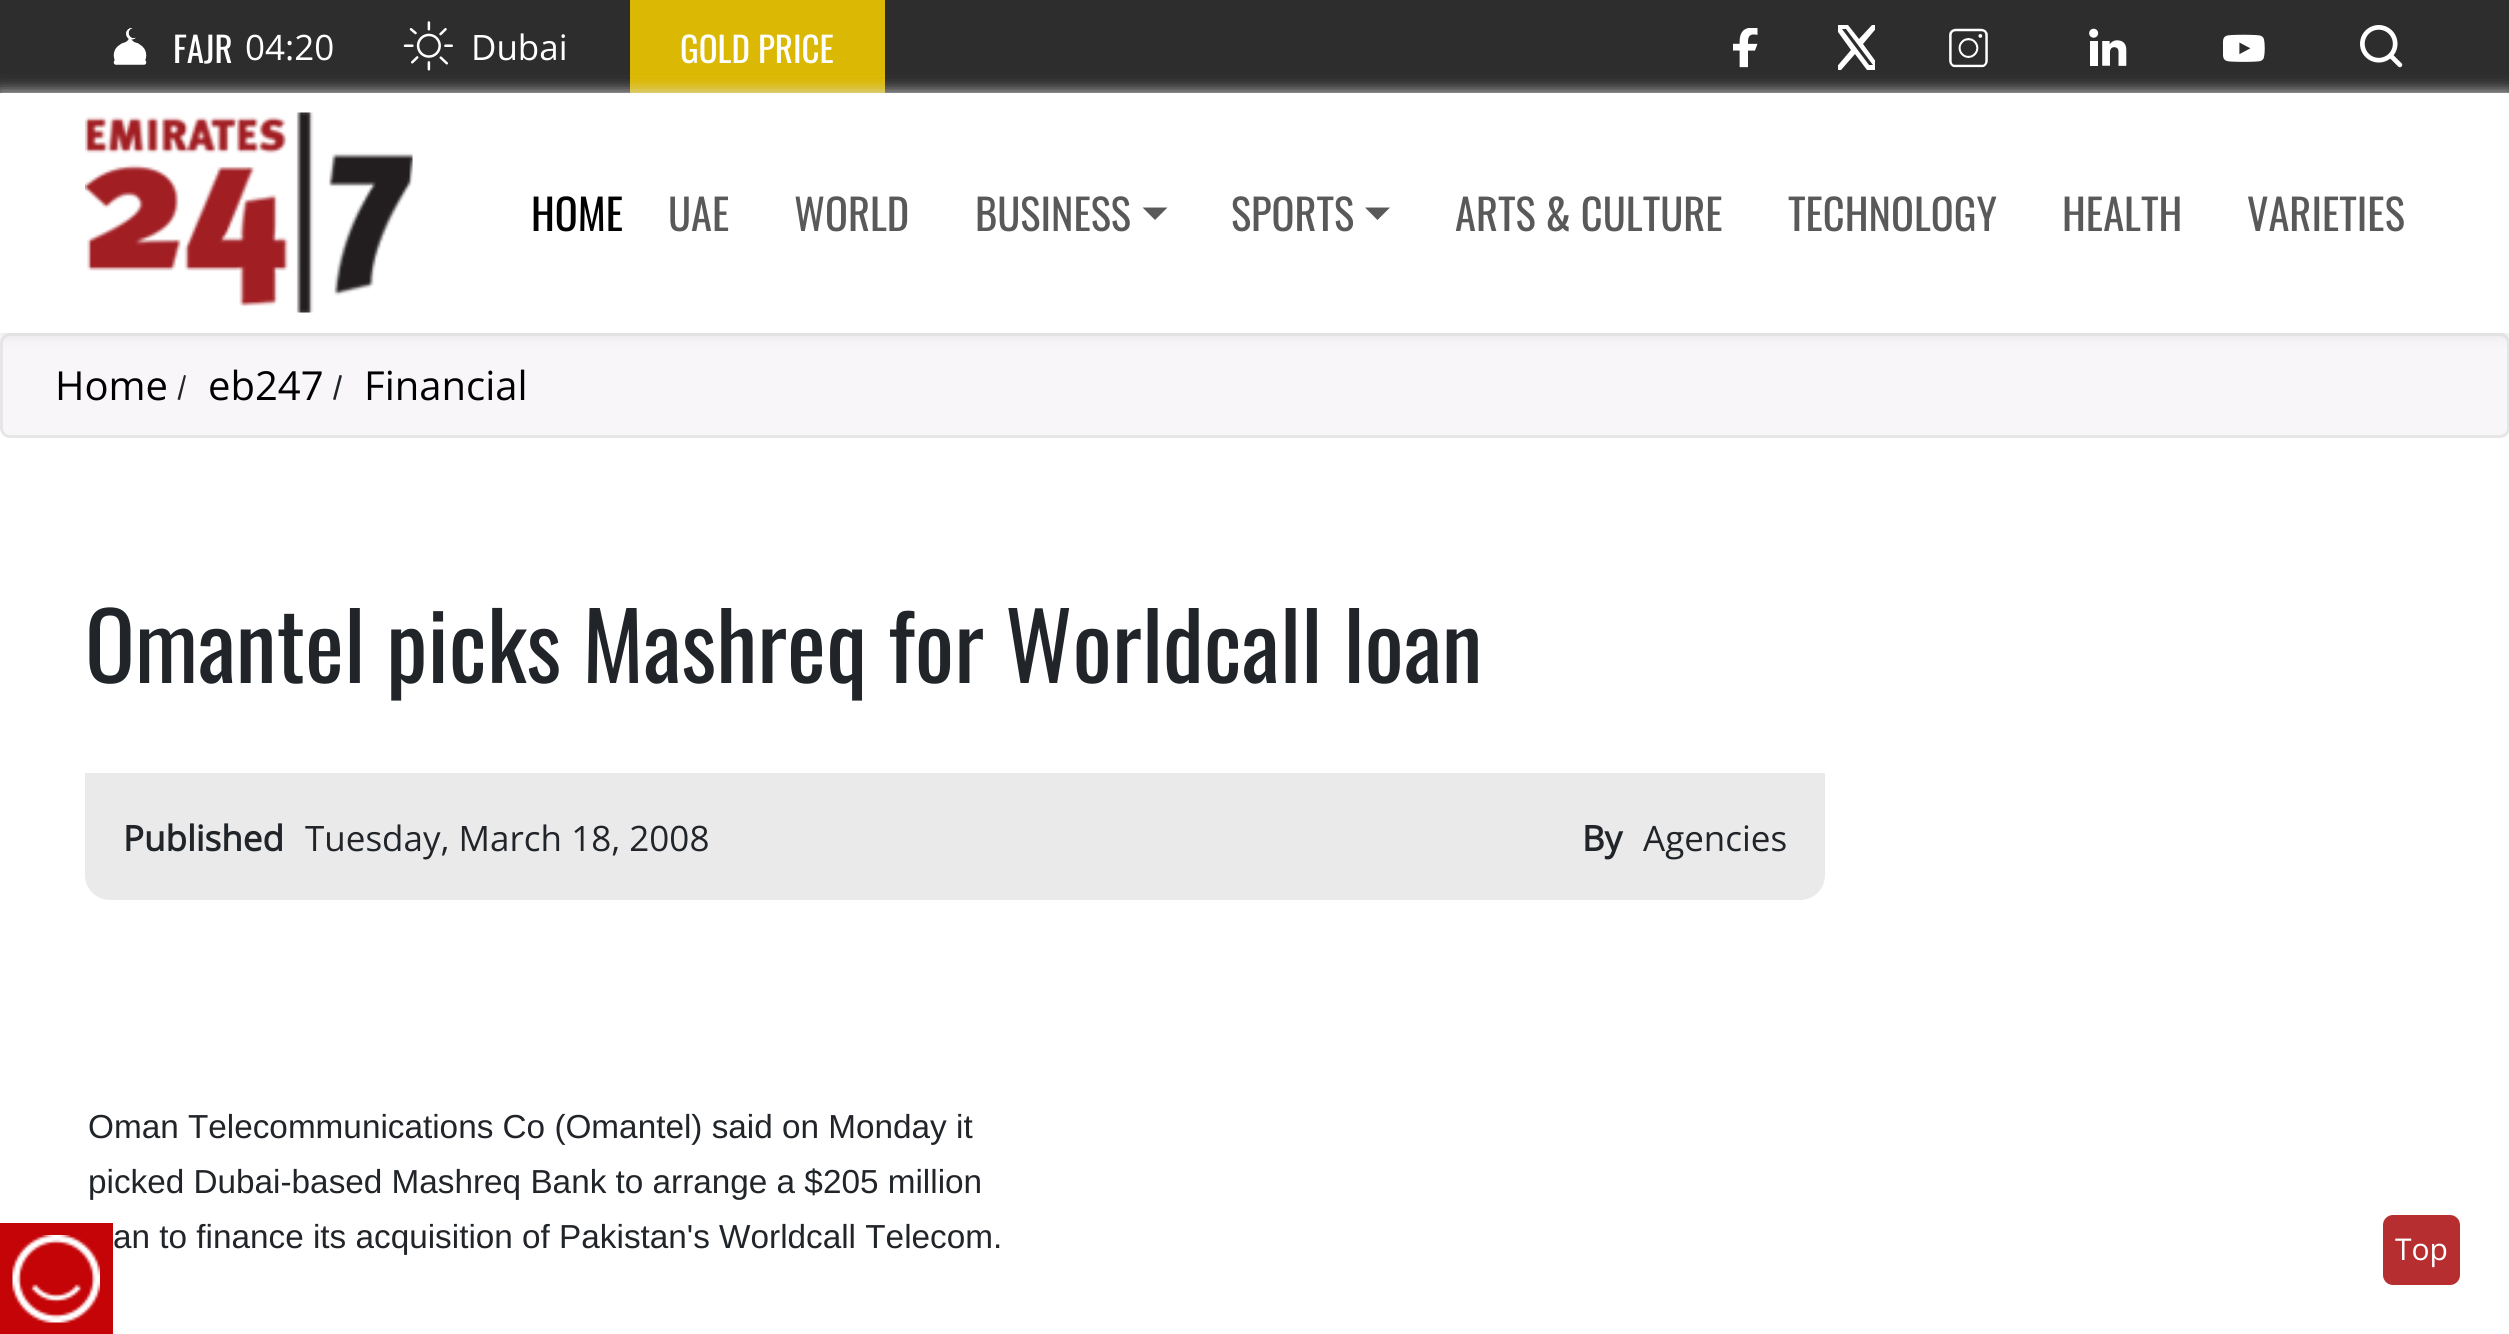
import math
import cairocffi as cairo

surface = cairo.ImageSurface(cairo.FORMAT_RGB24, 2509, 1334)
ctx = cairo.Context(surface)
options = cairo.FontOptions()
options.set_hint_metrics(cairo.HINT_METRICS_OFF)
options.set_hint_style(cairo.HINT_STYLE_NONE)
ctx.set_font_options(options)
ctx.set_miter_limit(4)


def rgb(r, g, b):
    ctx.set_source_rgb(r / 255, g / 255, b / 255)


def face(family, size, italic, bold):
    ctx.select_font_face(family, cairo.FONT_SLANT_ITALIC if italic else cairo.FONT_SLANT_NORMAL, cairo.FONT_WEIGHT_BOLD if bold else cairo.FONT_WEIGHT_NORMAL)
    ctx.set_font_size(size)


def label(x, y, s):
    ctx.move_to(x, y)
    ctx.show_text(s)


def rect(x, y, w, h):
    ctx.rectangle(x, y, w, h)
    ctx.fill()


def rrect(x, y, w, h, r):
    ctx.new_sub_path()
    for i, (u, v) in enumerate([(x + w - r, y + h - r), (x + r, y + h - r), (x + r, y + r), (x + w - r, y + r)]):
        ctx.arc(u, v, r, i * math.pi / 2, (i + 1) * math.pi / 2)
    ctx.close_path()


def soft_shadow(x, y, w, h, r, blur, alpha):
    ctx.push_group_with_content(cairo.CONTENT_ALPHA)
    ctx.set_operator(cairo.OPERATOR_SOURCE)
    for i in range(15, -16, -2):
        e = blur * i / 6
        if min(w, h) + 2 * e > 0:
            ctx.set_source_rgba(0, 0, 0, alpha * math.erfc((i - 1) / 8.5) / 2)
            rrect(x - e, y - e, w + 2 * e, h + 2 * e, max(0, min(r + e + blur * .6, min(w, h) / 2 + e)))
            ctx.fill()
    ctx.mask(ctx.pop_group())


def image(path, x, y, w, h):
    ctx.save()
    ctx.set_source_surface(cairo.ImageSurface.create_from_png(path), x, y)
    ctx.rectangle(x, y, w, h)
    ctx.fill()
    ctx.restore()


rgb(255, 255, 255)
ctx.paint()
rgb(45, 45, 45)
rect(0, 0, 2509, 93)
image('image0.png', 113, 28, 34, 37)
face('Oswald', 35, 0, 0)
rgb(255, 255, 255)
label(173, 63, 'FAJR')
face('Open Sans', 35, 0, 0)
label(245, 60, '04:20')
image('image1.png', 403, 21, 50, 50)
label(471, 60, 'Dubai')
rgb(219, 184, 3)
rect(630, 0, 255, 93)
face('Oswald', 35, 0, 0)
rgb(255, 255, 255)
label(680, 63, 'GOLD PRICE')
image('image2.png', 1733, 28, 25, 40)
ctx.save()
ctx.rectangle(1838, 23, 37, 50)
ctx.clip()
ctx.new_path()
ctx.move_to(1872, 25)
ctx.line_to(1879, 25)
ctx.line_to(1863, 44)
ctx.line_to(1882, 70)
ctx.line_to(1867, 70)
ctx.line_to(1855, 54)
ctx.line_to(1841, 70)
ctx.line_to(1834, 70)
ctx.line_to(1851, 50)
ctx.line_to(1833, 25)
ctx.line_to(1848, 25)
ctx.line_to(1859, 39)
ctx.close_path()
ctx.move_to(1869, 65)
ctx.line_to(1873, 65)
ctx.line_to(1846, 29)
ctx.line_to(1842, 29)
ctx.close_path()
ctx.fill()
ctx.restore()
image('image3.png', 1949, 28, 39, 40)
image('image4.png', 2089, 28, 38, 38)
image('image5.png', 2223, 34, 42, 28)
image('image6.png', 2360, 25, 43, 43)
rgb(248, 246, 248)
rrect(1.5, 334.5, 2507, 102, 8.5)
ctx.fill_preserve()
rgb(230, 230, 230)
ctx.set_line_width(3)
ctx.stroke()
rgb(221, 221, 221)
soft_shadow(0, 93, 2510, 240, 0, 7.5, 1)
rgb(255, 255, 255)
rect(0, 93, 2509, 240)
image('image7.png', 85, 112, 328, 201)
face('Oswald', 42.5, 0, 0)
rgb(0, 0, 0)
label(531, 231, 'HOME')
rgb(89, 89, 89)
label(668, 231, 'UAE')
label(794, 231, 'WORLD')
label(975, 231, 'BUSINESS')
ctx.new_path()
ctx.move_to(1142.5, 207.5)
ctx.line_to(1167.5, 207.5)
ctx.line_to(1155, 220)
ctx.close_path()
ctx.fill()
label(1231, 231, 'SPORTS')
ctx.new_path()
ctx.move_to(1365, 207.5)
ctx.line_to(1390, 207.5)
ctx.line_to(1377.5, 220)
ctx.close_path()
ctx.fill()
label(1455, 231, 'ARTS & CULTURE')
label(1788, 231, 'TECHNOLOGY')
label(2062, 231, 'HEALTH')
label(2247, 231, 'VARIETIES')
face('Open Sans', 40, 0, 0)
rgb(0, 0, 0)
label(55, 400, 'Home')
rgb(33, 37, 41)
ctx.new_path()
ctx.move_to(184, 375)
ctx.line_to(186, 375.5)
ctx.line_to(180, 400)
ctx.line_to(177.5, 399.5)
ctx.close_path()
ctx.fill()
rgb(0, 0, 0)
label(208, 400, 'eb247')
rgb(33, 37, 41)
ctx.new_path()
ctx.move_to(339.5, 375)
ctx.line_to(342, 375.5)
ctx.line_to(335.5, 400)
ctx.line_to(333, 399.5)
ctx.close_path()
ctx.fill()
rgb(0, 0, 0)
label(364, 400, 'Financial')
face('Oswald', 92.6, 0, 0)
rgb(33, 37, 41)
label(85, 683, 'Omantel picks Mashreq for Worldcall loan')
rgb(234, 234, 234)
ctx.new_path()
ctx.move_to(85, 773)
ctx.line_to(1825, 773)
ctx.line_to(1825, 875)
ctx.curve_to(1825, 889, 1814, 900, 1800, 900)
ctx.line_to(110, 900)
ctx.curve_to(96, 900, 85, 889, 85, 875)
ctx.close_path()
ctx.fill()
face('Open Sans', 35, 0, 1)
rgb(33, 37, 41)
label(123, 851, 'Published')
face('Open Sans', 35, 0, 0)
label(305, 851, 'Tuesday, March 18, 2008')
face('Open Sans', 35, 0, 1)
label(1582, 851, 'By')
face('Open Sans', 35, 0, 0)
label(1643, 851, 'Agencies')
face('Liberation Sans', 33.3, 0, 0)
label(88, 1138, 'Oman Telecommunications Co (Omantel) said on Monday it')
label(88, 1193, 'picked Dubai-based Mashreq Bank to arrange a $205 million')
label(113, 1248, 'an to finance its acquisition of Pakistan\'s Worldcall Telecom.')
rgb(197, 4, 8)
rect(0, 1223, 113, 111)
image('image8.png', 12, 1235, 88, 88)
rgb(182, 46, 48)
rrect(2383, 1215, 77, 70, 10)
ctx.fill()
face('Open Sans', 30, 0, 0)
rgb(255, 255, 255)
label(2395, 1260, 'Top')
surface.write_to_png('render.png')
